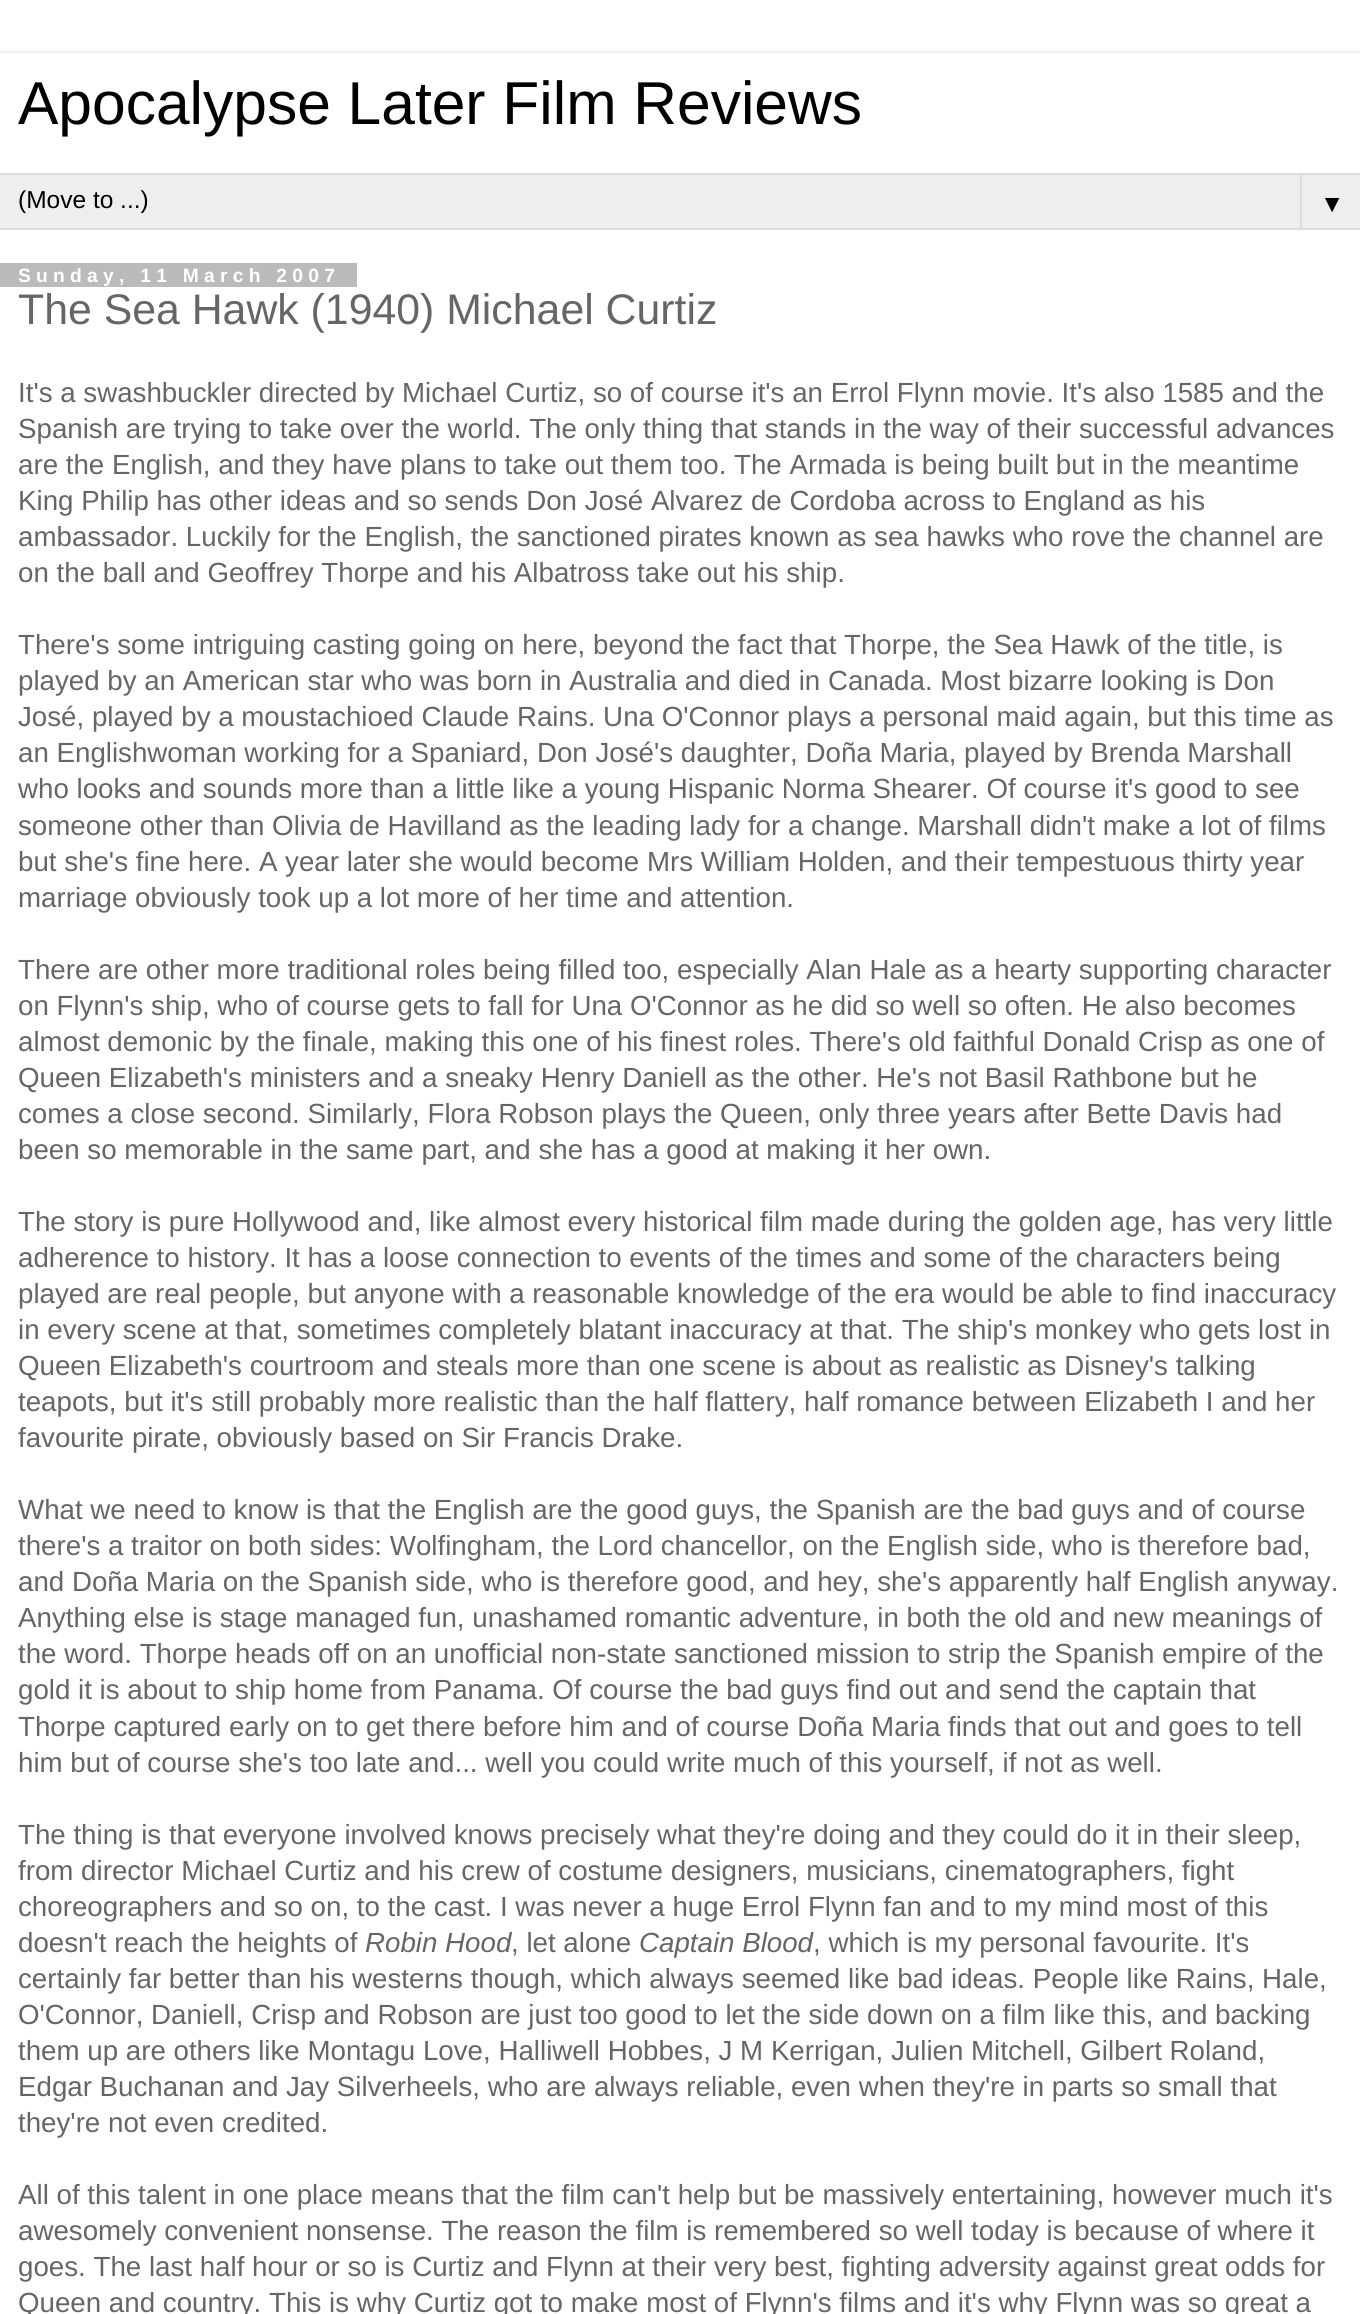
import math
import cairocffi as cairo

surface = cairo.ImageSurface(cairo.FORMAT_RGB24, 1360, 2314)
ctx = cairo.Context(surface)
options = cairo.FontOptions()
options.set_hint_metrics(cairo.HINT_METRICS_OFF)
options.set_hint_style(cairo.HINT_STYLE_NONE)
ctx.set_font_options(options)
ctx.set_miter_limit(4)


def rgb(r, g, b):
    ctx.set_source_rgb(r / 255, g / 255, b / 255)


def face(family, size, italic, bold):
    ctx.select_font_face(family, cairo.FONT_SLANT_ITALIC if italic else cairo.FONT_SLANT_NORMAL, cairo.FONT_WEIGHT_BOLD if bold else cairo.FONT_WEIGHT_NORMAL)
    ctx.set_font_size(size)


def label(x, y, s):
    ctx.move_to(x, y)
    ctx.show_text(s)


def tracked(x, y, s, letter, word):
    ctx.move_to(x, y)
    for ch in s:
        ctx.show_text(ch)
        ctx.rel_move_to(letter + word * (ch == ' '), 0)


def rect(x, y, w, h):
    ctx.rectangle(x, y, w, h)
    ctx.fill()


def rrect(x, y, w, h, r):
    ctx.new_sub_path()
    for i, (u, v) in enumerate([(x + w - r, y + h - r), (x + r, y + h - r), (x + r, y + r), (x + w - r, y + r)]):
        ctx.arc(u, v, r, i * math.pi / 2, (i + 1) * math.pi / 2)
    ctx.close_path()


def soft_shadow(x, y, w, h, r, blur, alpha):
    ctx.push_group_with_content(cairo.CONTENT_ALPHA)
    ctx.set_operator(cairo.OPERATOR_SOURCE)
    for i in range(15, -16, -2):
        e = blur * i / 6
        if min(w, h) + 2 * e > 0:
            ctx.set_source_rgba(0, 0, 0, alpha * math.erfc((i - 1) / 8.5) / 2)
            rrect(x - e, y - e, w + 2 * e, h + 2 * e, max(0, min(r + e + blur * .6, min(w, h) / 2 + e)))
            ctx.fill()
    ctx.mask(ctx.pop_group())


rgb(255, 255, 255)
ctx.paint()
ctx.save()
ctx.rectangle(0, 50, 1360, 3)
ctx.clip()
rgb(0, 0, 0)
soft_shadow(0, 53, 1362, 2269, 0, 2.5, 0.15)
ctx.restore()
face('Liberation Sans', 60.5, 0, 0)
rgb(0, 0, 0)
label(18, 124, 'Apocalypse Later Film Reviews')
rgb(238, 238, 238)
rect(0, 175, 1360, 53)
rgb(221, 221, 221)
rect(0, 173, 1360, 2)
rect(0, 228, 1360, 2)
face('Liberation Sans', 24.5, 0, 0)
rgb(0, 0, 0)
label(18, 208, '(Move to ...)')
rgb(221, 221, 221)
rect(1300, 173, 2, 56)
rgb(0, 0, 0)
label(1320, 212, '▼')
rgb(187, 187, 187)
rect(0, 263, 357, 24)
face('Liberation Sans', 19.25, 0, 1)
rgb(255, 255, 255)
tracked(18, 282, 'Sunday, 11 March 2007', 5.25, 0)
face('Liberation Sans', 42.8, 0, 0)
rgb(102, 102, 102)
label(18, 324, 'The Sea Hawk (1940) Michael Curtiz')
face('Liberation Sans', 27.7, 0, 0)
label(18, 402, 'It\'s a swashbuckler directed by Michael Curtiz, so of course it\'s an Errol Flynn movie. It\'s also 1585 and the')
label(18, 438, 'Spanish are trying to take over the world. The only thing that stands in the way of their successful advances')
label(18, 474, 'are the English, and they have plans to take out them too. The Armada is being built but in the meantime')
label(18, 510, 'King Philip has other ideas and so sends Don José Alvarez de Cordoba across to England as his')
label(18, 546, 'ambassador. Luckily for the English, the sanctioned pirates known as sea hawks who rove the channel are')
label(18, 582, 'on the ball and Geoffrey Thorpe and his Albatross take out his ship.')
label(18, 654, 'There\'s some intriguing casting going on here, beyond the fact that Thorpe, the Sea Hawk of the title, is')
label(18, 690, 'played by an American star who was born in Australia and died in Canada. Most bizarre looking is Don')
label(18, 726, 'José, played by a moustachioed Claude Rains. Una O\'Connor plays a personal maid again, but this time as')
label(18, 762, 'an Englishwoman working for a Spaniard, Don José\'s daughter, Doña Maria, played by Brenda Marshall')
label(18, 798, 'who looks and sounds more than a little like a young Hispanic Norma Shearer. Of course it\'s good to see')
label(18, 835, 'someone other than Olivia de Havilland as the leading lady for a change. Marshall didn\'t make a lot of films')
label(18, 871, 'but she\'s fine here. A year later she would become Mrs William Holden, and their tempestuous thirty year')
label(18, 907, 'marriage obviously took up a lot more of her time and attention.')
label(18, 979, 'There are other more traditional roles being filled too, especially Alan Hale as a hearty supporting character')
label(18, 1015, 'on Flynn\'s ship, who of course gets to fall for Una O\'Connor as he did so well so often. He also becomes')
label(18, 1051, 'almost demonic by the finale, making this one of his finest roles. There\'s old faithful Donald Crisp as one of')
label(18, 1087, 'Queen Elizabeth\'s ministers and a sneaky Henry Daniell as the other. He\'s not Basil Rathbone but he')
label(18, 1123, 'comes a close second. Similarly, Flora Robson plays the Queen, only three years after Bette Davis had')
label(18, 1159, 'been so memorable in the same part, and she has a good at making it her own.')
label(18, 1231, 'The story is pure Hollywood and, like almost every historical film made during the golden age, has very little')
label(18, 1267, 'adherence to history. It has a loose connection to events of the times and some of the characters being')
label(18, 1303, 'played are real people, but anyone with a reasonable knowledge of the era would be able to find inaccuracy')
label(18, 1339, 'in every scene at that, sometimes completely blatant inaccuracy at that. The ship\'s monkey who gets lost in')
label(18, 1375, 'Queen Elizabeth\'s courtroom and steals more than one scene is about as realistic as Disney\'s talking')
label(18, 1411, 'teapots, but it\'s still probably more realistic than the half flattery, half romance between Elizabeth I and her')
label(18, 1447, 'favourite pirate, obviously based on Sir Francis Drake.')
label(18, 1519, 'What we need to know is that the English are the good guys, the Spanish are the bad guys and of course')
label(18, 1555, 'there\'s a traitor on both sides: Wolfingham, the Lord chancellor, on the English side, who is therefore bad,')
label(18, 1591, 'and Doña Maria on the Spanish side, who is therefore good, and hey, she\'s apparently half English anyway.')
label(18, 1627, 'Anything else is stage managed fun, unashamed romantic adventure, in both the old and new meanings of')
label(18, 1663, 'the word. Thorpe heads off on an unofficial non-state sanctioned mission to strip the Spanish empire of the')
label(18, 1699, 'gold it is about to ship home from Panama. Of course the bad guys find out and send the captain that')
label(18, 1736, 'Thorpe captured early on to get there before him and of course Doña Maria finds that out and goes to tell')
label(18, 1772, 'him but of course she\'s too late and... well you could write much of this yourself, if not as well.')
label(18, 1844, 'The thing is that everyone involved knows precisely what they\'re doing and they could do it in their sleep,')
label(18, 1880, 'from director Michael Curtiz and his crew of costume designers, musicians, cinematographers, fight')
label(18, 1916, 'choreographers and so on, to the cast. I was never a huge Errol Flynn fan and to my mind most of this')
label(18, 1952, 'doesn\'t reach the heights of')
face('Liberation Sans', 27.7, 1, 0)
label(365, 1952, 'Robin Hood')
face('Liberation Sans', 27.7, 0, 0)
label(511, 1952, ', let alone')
face('Liberation Sans', 27.7, 1, 0)
label(639, 1952, 'Captain Blood')
face('Liberation Sans', 27.7, 0, 0)
label(813, 1952, ', which is my personal favourite. It\'s')
label(18, 1988, 'certainly far better than his westerns though, which always seemed like bad ideas. People like Rains, Hale,')
label(18, 2024, 'O\'Connor, Daniell, Crisp and Robson are just too good to let the side down on a film like this, and backing')
label(18, 2060, 'them up are others like Montagu Love, Halliwell Hobbes, J M Kerrigan, Julien Mitchell, Gilbert Roland,')
label(18, 2096, 'Edgar Buchanan and Jay Silverheels, who are always reliable, even when they\'re in parts so small that')
label(18, 2132, 'they\'re not even credited.')
label(18, 2204, 'All of this talent in one place means that the film can\'t help but be massively entertaining, however much it\'s')
label(18, 2240, 'awesomely convenient nonsense. The reason the film is remembered so well today is because of where it')
label(18, 2276, 'goes. The last half hour or so is Curtiz and Flynn at their very best, fighting adversity against great odds for')
label(18, 2312, 'Queen and country. This is why Curtiz got to make most of Flynn\'s films and it\'s why Flynn was so great a')
surface.write_to_png('render.png')
